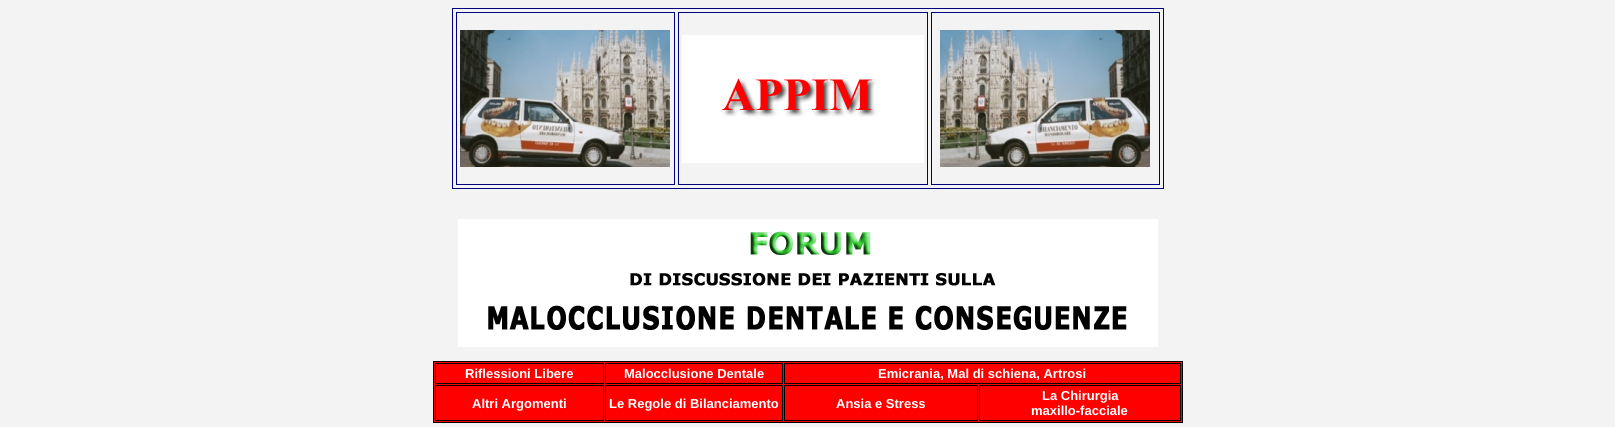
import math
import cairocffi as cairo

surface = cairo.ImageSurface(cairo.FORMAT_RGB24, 1615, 427)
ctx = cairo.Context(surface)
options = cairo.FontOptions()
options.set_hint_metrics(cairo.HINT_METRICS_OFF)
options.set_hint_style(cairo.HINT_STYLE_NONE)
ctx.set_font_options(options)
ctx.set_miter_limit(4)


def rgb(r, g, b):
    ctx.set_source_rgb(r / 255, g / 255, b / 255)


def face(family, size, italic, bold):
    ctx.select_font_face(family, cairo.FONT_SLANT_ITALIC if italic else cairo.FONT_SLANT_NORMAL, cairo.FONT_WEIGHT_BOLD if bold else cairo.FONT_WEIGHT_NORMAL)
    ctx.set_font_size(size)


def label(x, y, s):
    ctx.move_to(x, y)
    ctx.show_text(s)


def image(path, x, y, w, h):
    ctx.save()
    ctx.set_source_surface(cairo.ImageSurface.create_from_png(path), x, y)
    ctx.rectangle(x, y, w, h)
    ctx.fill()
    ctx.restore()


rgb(243, 243, 243)
ctx.paint()
ctx.rectangle(452.5, 8.5, 711, 180)
rgb(0, 0, 128)
ctx.set_line_width(1)
ctx.stroke()
ctx.rectangle(456.5, 12.5, 218, 172)
ctx.stroke()
image('image0.png', 460, 30, 210, 137)
ctx.rectangle(678.5, 12.5, 249, 172)
ctx.stroke()
image('image1.png', 682, 35, 242, 128)
ctx.rectangle(931.5, 12.5, 228, 172)
ctx.stroke()
image('image2.png', 940, 30, 210, 137)
image('image3.png', 458, 219, 700, 128)
rgb(255, 0, 0)
ctx.rectangle(433.5, 361.5, 749, 61)
ctx.fill_preserve()
rgb(0, 0, 0)
ctx.stroke()
ctx.rectangle(435.5, 363.5, 168, 20)
ctx.stroke()
face('Liberation Sans', 13, 0, 1)
rgb(255, 255, 255)
label(465, 378, 'Riflessioni Libere')
ctx.rectangle(605.5, 363.5, 177, 20)
rgb(0, 0, 0)
ctx.stroke()
rgb(255, 255, 255)
label(624, 378, 'Malocclusione Dentale')
ctx.rectangle(784.5, 363.5, 396, 20)
rgb(0, 0, 0)
ctx.stroke()
rgb(255, 255, 255)
label(878, 378, 'Emicrania, Mal di schiena, Artrosi')
ctx.rectangle(435.5, 385.5, 168, 35)
rgb(0, 0, 0)
ctx.stroke()
rgb(255, 255, 255)
label(472, 408, 'Altri Argomenti')
ctx.rectangle(605.5, 385.5, 177, 35)
rgb(0, 0, 0)
ctx.stroke()
rgb(255, 255, 255)
label(609, 408, 'Le Regole di Bilanciamento')
ctx.rectangle(784.5, 385.5, 193, 35)
rgb(0, 0, 0)
ctx.stroke()
rgb(255, 255, 255)
label(836, 408, 'Ansia e Stress')
ctx.rectangle(979.5, 385.5, 201, 35)
rgb(0, 0, 0)
ctx.stroke()
rgb(255, 255, 255)
label(1042, 400, 'La Chirurgia')
label(1031, 415, 'maxillo-facciale')
surface.write_to_png('render.png')
